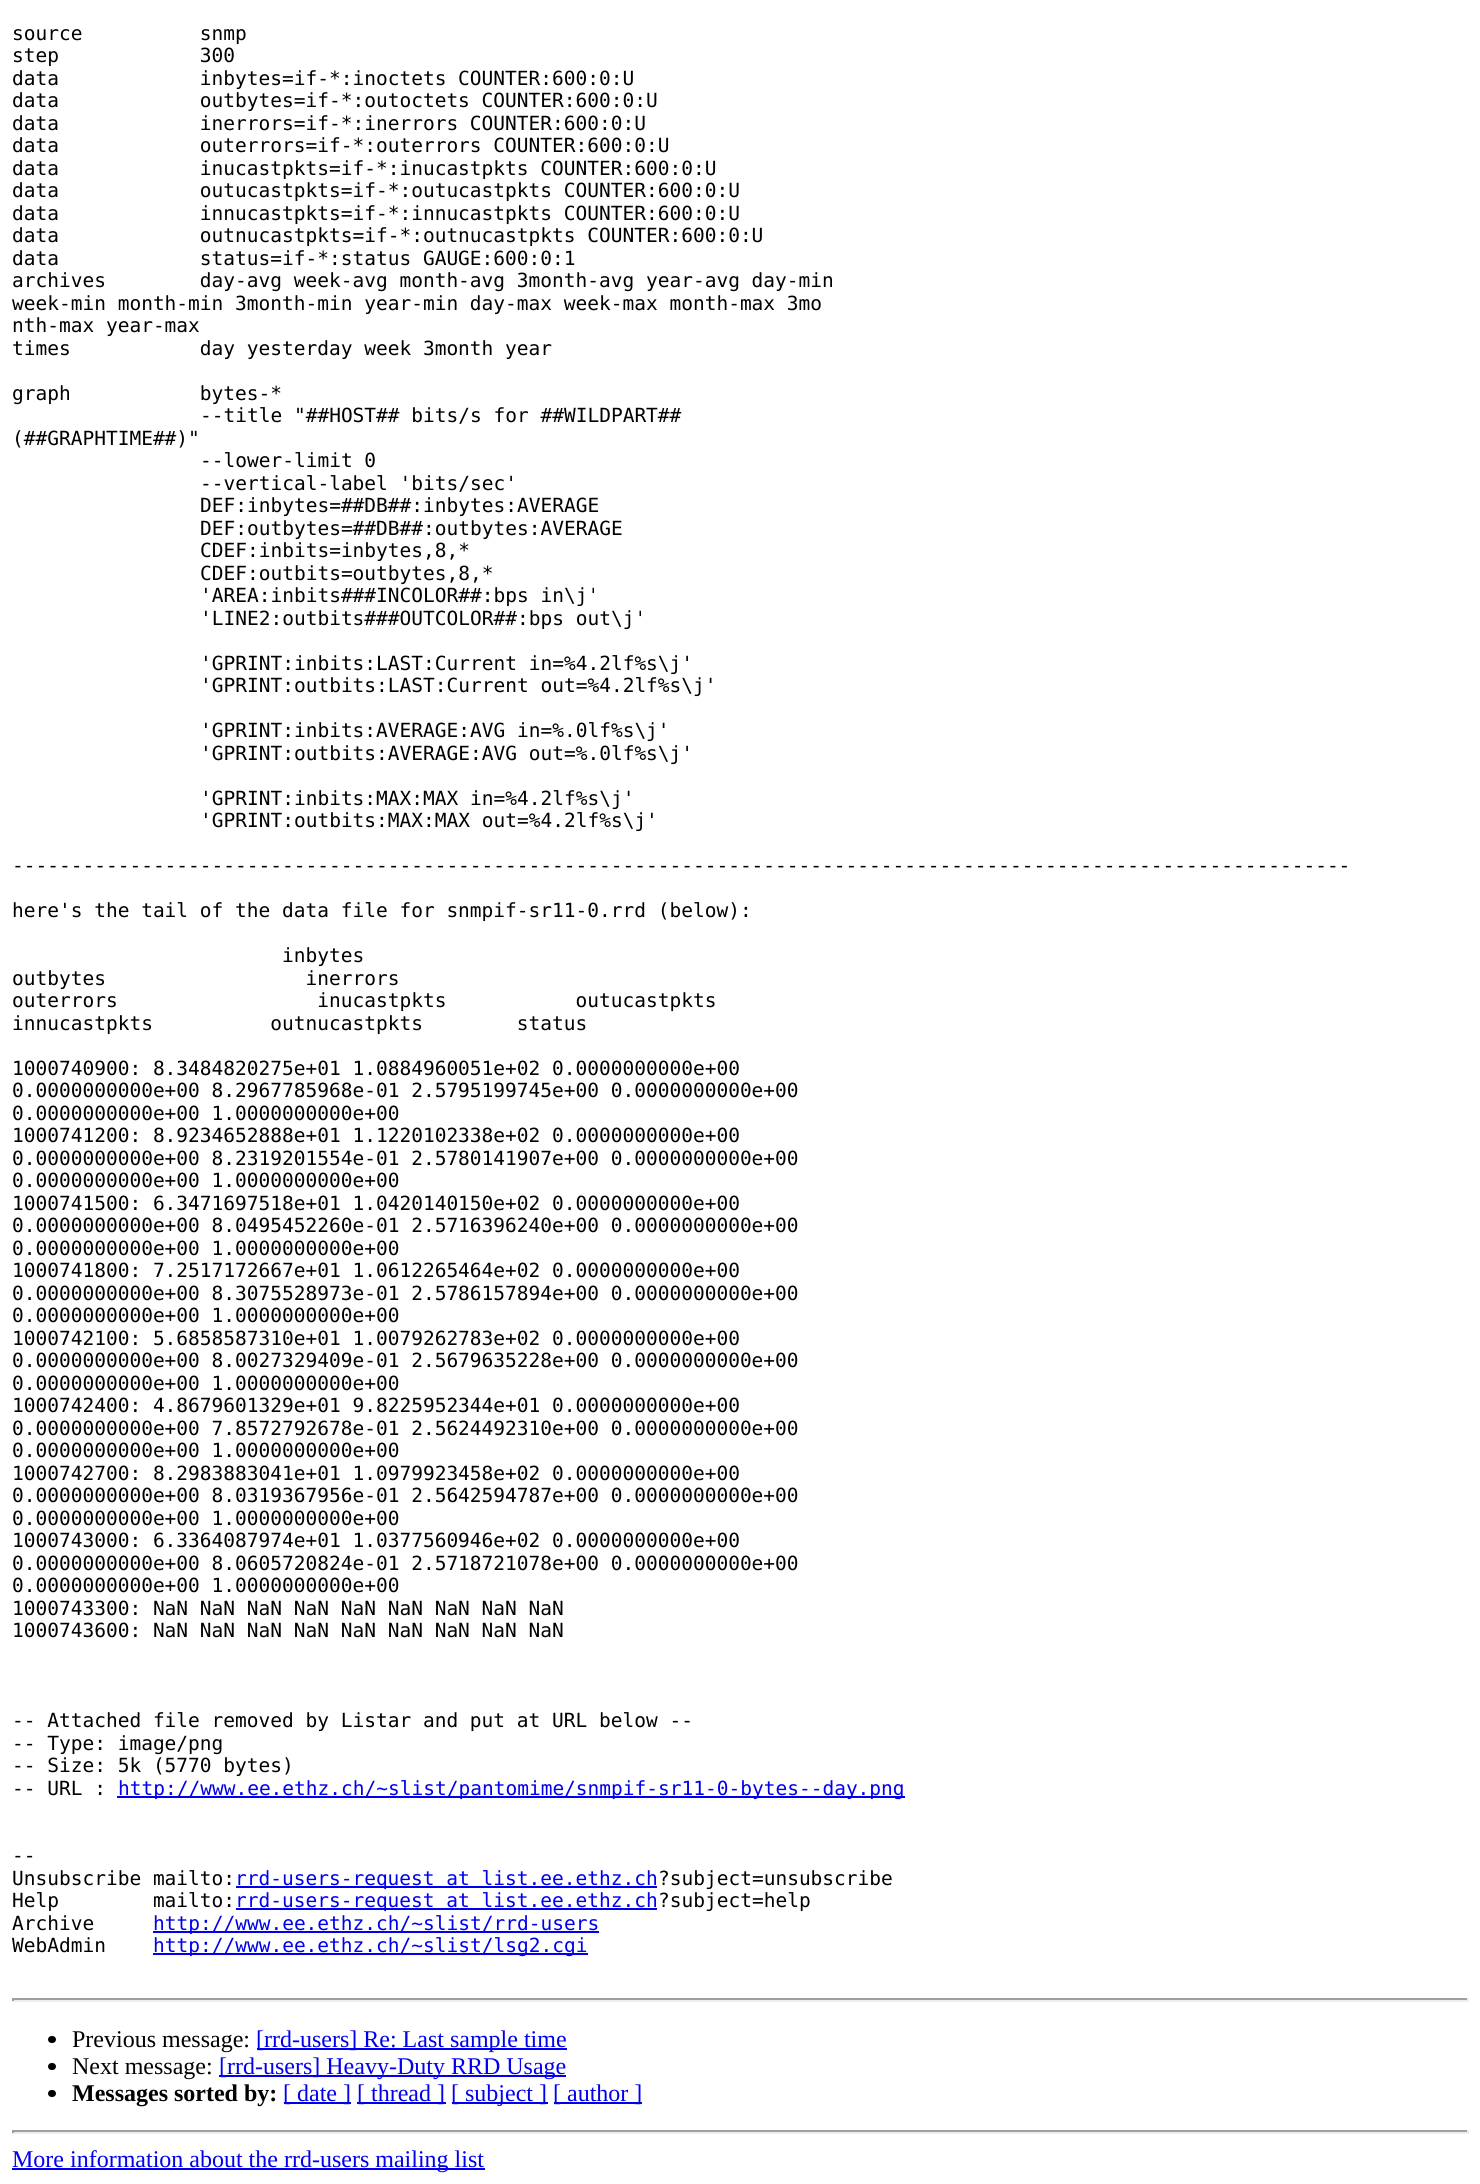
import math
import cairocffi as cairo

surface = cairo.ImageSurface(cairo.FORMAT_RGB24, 1480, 2184)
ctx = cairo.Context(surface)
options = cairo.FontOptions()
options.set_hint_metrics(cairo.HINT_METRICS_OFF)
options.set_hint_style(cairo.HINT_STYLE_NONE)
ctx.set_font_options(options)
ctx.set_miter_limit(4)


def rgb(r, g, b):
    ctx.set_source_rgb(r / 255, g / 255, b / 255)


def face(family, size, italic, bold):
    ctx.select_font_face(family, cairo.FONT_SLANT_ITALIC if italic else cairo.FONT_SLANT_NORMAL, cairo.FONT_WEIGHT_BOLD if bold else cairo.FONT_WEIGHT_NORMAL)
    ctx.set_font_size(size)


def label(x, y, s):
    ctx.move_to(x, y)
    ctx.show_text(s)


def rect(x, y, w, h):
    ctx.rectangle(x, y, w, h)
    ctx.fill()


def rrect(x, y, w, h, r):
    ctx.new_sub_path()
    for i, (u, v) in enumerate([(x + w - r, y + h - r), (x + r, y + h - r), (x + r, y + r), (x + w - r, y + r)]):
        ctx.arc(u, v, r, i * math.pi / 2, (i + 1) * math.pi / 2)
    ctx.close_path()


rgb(255, 255, 255)
ctx.paint()
face('DejaVu Sans Mono', 19.5, 0, 0)
rgb(0, 0, 0)
label(12, 40, 'source          snmp')
label(12, 62, 'step            300')
label(12, 85, 'data            inbytes=if-*:inoctets COUNTER:600:0:U')
label(12, 107, 'data            outbytes=if-*:outoctets COUNTER:600:0:U')
label(12, 130, 'data            inerrors=if-*:inerrors COUNTER:600:0:U')
label(12, 152, 'data            outerrors=if-*:outerrors COUNTER:600:0:U')
label(12, 175, 'data            inucastpkts=if-*:inucastpkts COUNTER:600:0:U')
label(12, 197, 'data            outucastpkts=if-*:outucastpkts COUNTER:600:0:U')
label(12, 220, 'data            innucastpkts=if-*:innucastpkts COUNTER:600:0:U')
label(12, 242, 'data            outnucastpkts=if-*:outnucastpkts COUNTER:600:0:U')
label(12, 265, 'data            status=if-*:status GAUGE:600:0:1')
label(12, 287, 'archives        day-avg week-avg month-avg 3month-avg year-avg day-min')
label(12, 310, 'week-min month-min 3month-min year-min day-max week-max month-max 3mo')
label(12, 332, 'nth-max year-max')
label(12, 355, 'times           day yesterday week 3month year')
label(12, 400, 'graph           bytes-*')
label(200, 422, '--title "##HOST## bits/s for ##WILDPART##')
label(12, 445, '(##GRAPHTIME##)"')
label(200, 467, '--lower-limit 0')
label(200, 490, '--vertical-label \'bits/sec\'')
label(200, 512, 'DEF:inbytes=##DB##:inbytes:AVERAGE')
label(200, 535, 'DEF:outbytes=##DB##:outbytes:AVERAGE')
label(200, 557, 'CDEF:inbits=inbytes,8,*')
label(200, 580, 'CDEF:outbits=outbytes,8,*')
label(200, 602, '\'AREA:inbits###INCOLOR##:bps in\\j\'')
label(200, 625, '\'LINE2:outbits###OUTCOLOR##:bps out\\j\'')
label(200, 670, '\'GPRINT:inbits:LAST:Current in=%4.2lf%s\\j\'')
label(200, 692, '\'GPRINT:outbits:LAST:Current out=%4.2lf%s\\j\'')
label(200, 737, '\'GPRINT:inbits:AVERAGE:AVG in=%.0lf%s\\j\'')
label(200, 760, '\'GPRINT:outbits:AVERAGE:AVG out=%.0lf%s\\j\'')
label(200, 805, '\'GPRINT:inbits:MAX:MAX in=%4.2lf%s\\j\'')
label(200, 827, '\'GPRINT:outbits:MAX:MAX out=%4.2lf%s\\j\'')
label(12, 872, '------------------------------------------------------------------------------------------------------------------')
label(12, 917, 'here\'s the tail of the data file for snmpif-sr11-0.rrd (below):')
label(282, 962, 'inbytes')
label(12, 985, 'outbytes                 inerrors')
label(12, 1007, 'outerrors                 inucastpkts           outucastpkts')
label(12, 1030, 'innucastpkts          outnucastpkts        status')
label(12, 1075, '1000740900: 8.3484820275e+01 1.0884960051e+02 0.0000000000e+00')
label(12, 1097, '0.0000000000e+00 8.2967785968e-01 2.5795199745e+00 0.0000000000e+00')
label(12, 1120, '0.0000000000e+00 1.0000000000e+00')
label(12, 1142, '1000741200: 8.9234652888e+01 1.1220102338e+02 0.0000000000e+00')
label(12, 1165, '0.0000000000e+00 8.2319201554e-01 2.5780141907e+00 0.0000000000e+00')
label(12, 1187, '0.0000000000e+00 1.0000000000e+00')
label(12, 1210, '1000741500: 6.3471697518e+01 1.0420140150e+02 0.0000000000e+00')
label(12, 1232, '0.0000000000e+00 8.0495452260e-01 2.5716396240e+00 0.0000000000e+00')
label(12, 1255, '0.0000000000e+00 1.0000000000e+00')
label(12, 1277, '1000741800: 7.2517172667e+01 1.0612265464e+02 0.0000000000e+00')
label(12, 1300, '0.0000000000e+00 8.3075528973e-01 2.5786157894e+00 0.0000000000e+00')
label(12, 1322, '0.0000000000e+00 1.0000000000e+00')
label(12, 1345, '1000742100: 5.6858587310e+01 1.0079262783e+02 0.0000000000e+00')
label(12, 1367, '0.0000000000e+00 8.0027329409e-01 2.5679635228e+00 0.0000000000e+00')
label(12, 1390, '0.0000000000e+00 1.0000000000e+00')
label(12, 1412, '1000742400: 4.8679601329e+01 9.8225952344e+01 0.0000000000e+00')
label(12, 1435, '0.0000000000e+00 7.8572792678e-01 2.5624492310e+00 0.0000000000e+00')
label(12, 1457, '0.0000000000e+00 1.0000000000e+00')
label(12, 1480, '1000742700: 8.2983883041e+01 1.0979923458e+02 0.0000000000e+00')
label(12, 1502, '0.0000000000e+00 8.0319367956e-01 2.5642594787e+00 0.0000000000e+00')
label(12, 1525, '0.0000000000e+00 1.0000000000e+00')
label(12, 1547, '1000743000: 6.3364087974e+01 1.0377560946e+02 0.0000000000e+00')
label(12, 1570, '0.0000000000e+00 8.0605720824e-01 2.5718721078e+00 0.0000000000e+00')
label(12, 1592, '0.0000000000e+00 1.0000000000e+00')
label(12, 1615, '1000743300: NaN NaN NaN NaN NaN NaN NaN NaN NaN')
label(12, 1637, '1000743600: NaN NaN NaN NaN NaN NaN NaN NaN NaN')
label(12, 1727, '-- Attached file removed by Listar and put at URL below --')
label(12, 1750, '-- Type: image/png')
label(12, 1772, '-- Size: 5k (5770 bytes)')
label(12, 1795, '-- URL :')
rgb(0, 0, 238)
rect(117, 1796, 788, 2)
label(118, 1795, 'http://www.ee.ethz.ch/~slist/pantomime/snmpif-sr11-0-bytes--day.png')
rgb(0, 0, 0)
label(12, 1862, '--')
label(12, 1885, 'Unsubscribe mailto:')
rgb(0, 0, 238)
rect(236, 1886, 421, 2)
label(235, 1885, 'rrd-users-request at list.ee.ethz.ch')
rgb(0, 0, 0)
label(658, 1885, '?subject=unsubscribe')
label(12, 1907, 'Help        mailto:')
rgb(0, 0, 238)
rect(236, 1908, 421, 2)
label(235, 1907, 'rrd-users-request at list.ee.ethz.ch')
rgb(0, 0, 0)
label(658, 1907, '?subject=help')
label(12, 1930, 'Archive')
rgb(0, 0, 238)
rect(153, 1931, 446, 2)
label(153, 1930, 'http://www.ee.ethz.ch/~slist/rrd-users')
rgb(0, 0, 0)
label(12, 1952, 'WebAdmin')
rgb(0, 0, 238)
rect(153, 1953, 435, 2)
label(153, 1952, 'http://www.ee.ethz.ch/~slist/lsg2.cgi')
rgb(159, 159, 159)
rect(12, 1998, 1457, 2)
rgb(238, 238, 238)
rect(1467, 1998, 2, 3)
rect(12, 2000, 1457, 2)
rgb(159, 159, 159)
rect(12, 1998, 2, 3)
rgb(0, 0, 0)
rrect(48, 2036, 8, 7, 3.5)
ctx.fill()
face('Liberation Serif', 24, 0, 0)
label(72, 2047, 'Previous message:')
rgb(0, 0, 238)
rect(257, 2048, 310, 2)
label(256, 2047, '[rrd-users] Re: Last sample time')
rgb(0, 0, 0)
rrect(48, 2063, 8, 7, 3.5)
ctx.fill()
label(72, 2074, 'Next message:')
rgb(0, 0, 238)
rect(219, 2075, 347, 2)
label(219, 2074, '[rrd-users] Heavy-Duty RRD Usage')
rgb(0, 0, 0)
rrect(48, 2090, 8, 7, 3.5)
ctx.fill()
face('Liberation Serif', 24, 0, 1)
label(72, 2101, 'Messages sorted by:')
rgb(0, 0, 238)
rect(284, 2102, 67, 2)
face('Liberation Serif', 24, 0, 0)
label(283, 2101, '[ date ]')
rect(357, 2102, 89, 2)
label(357, 2101, '[ thread ]')
rect(452, 2102, 96, 2)
label(451, 2101, '[ subject ]')
rect(554, 2102, 88, 2)
label(553, 2101, '[ author ]')
rgb(159, 159, 159)
rect(12, 2130, 1457, 2)
rgb(238, 238, 238)
rect(1467, 2130, 2, 3)
rect(12, 2132, 1457, 2)
rgb(159, 159, 159)
rect(12, 2130, 2, 3)
rgb(0, 0, 238)
rect(12, 2168, 473, 2)
label(12, 2167, 'More information about the rrd-users mailing list')
surface.write_to_png('render.png')
